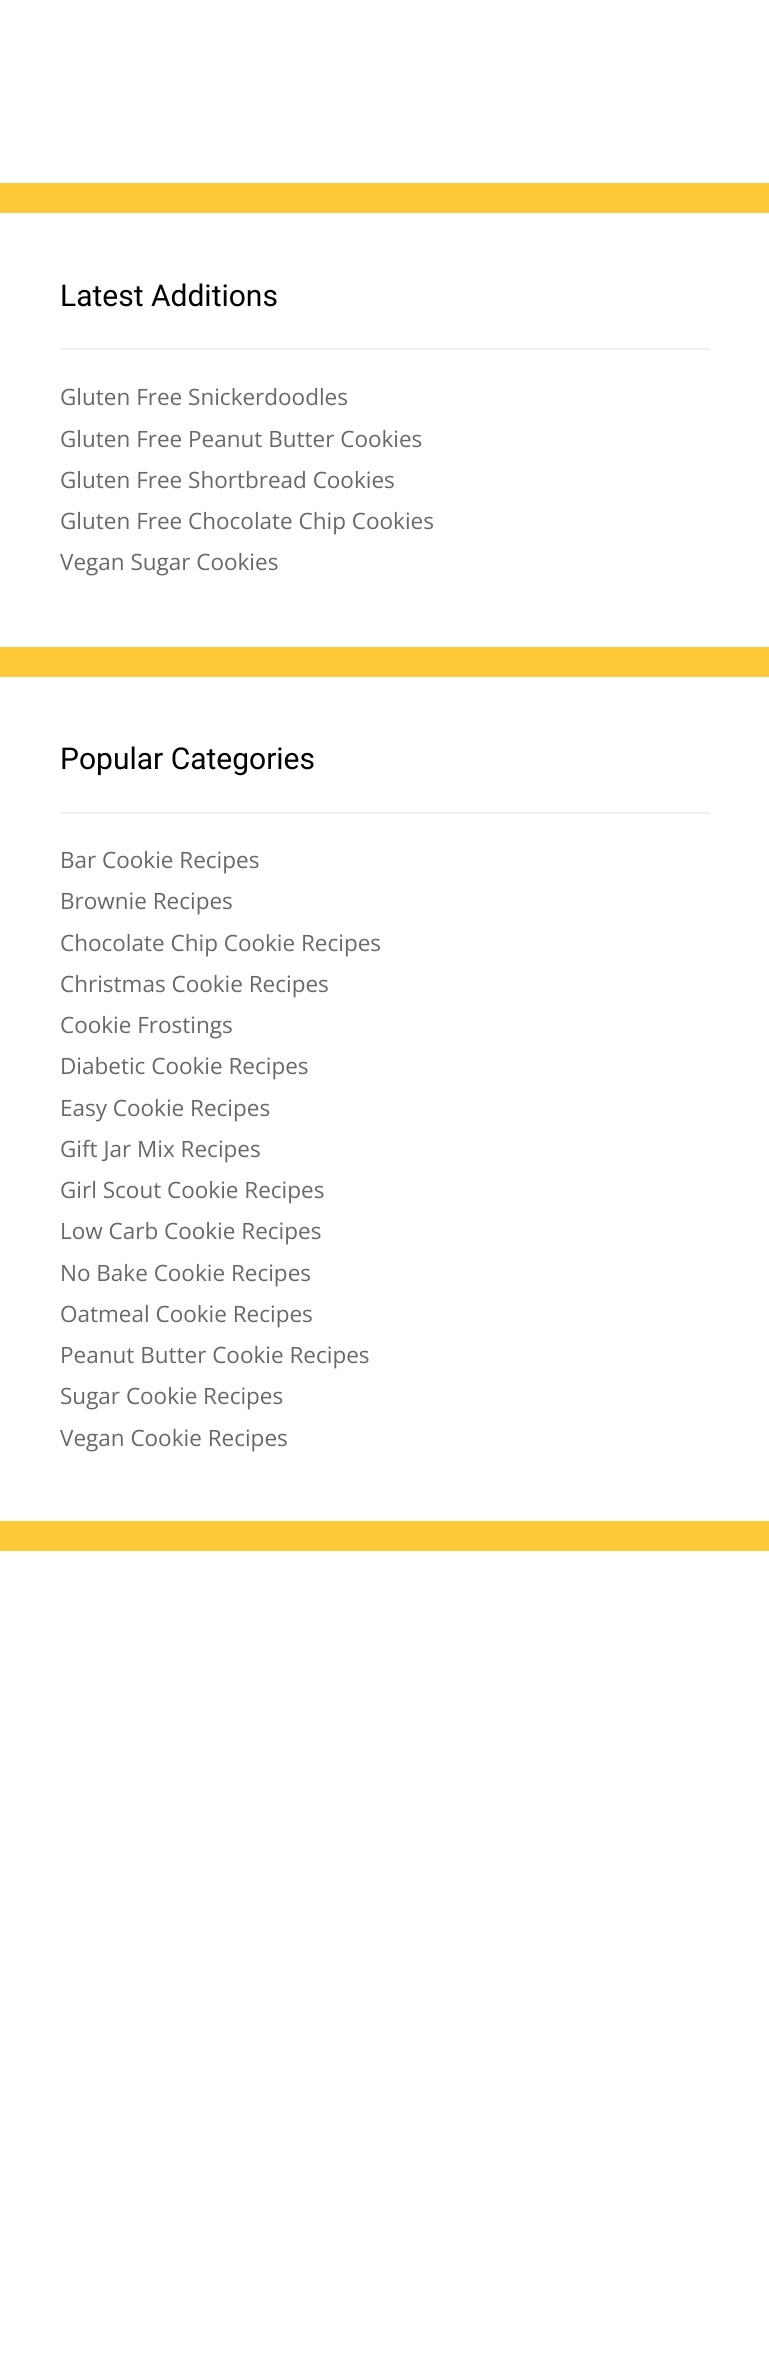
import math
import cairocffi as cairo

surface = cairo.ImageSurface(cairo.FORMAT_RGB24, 769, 2354)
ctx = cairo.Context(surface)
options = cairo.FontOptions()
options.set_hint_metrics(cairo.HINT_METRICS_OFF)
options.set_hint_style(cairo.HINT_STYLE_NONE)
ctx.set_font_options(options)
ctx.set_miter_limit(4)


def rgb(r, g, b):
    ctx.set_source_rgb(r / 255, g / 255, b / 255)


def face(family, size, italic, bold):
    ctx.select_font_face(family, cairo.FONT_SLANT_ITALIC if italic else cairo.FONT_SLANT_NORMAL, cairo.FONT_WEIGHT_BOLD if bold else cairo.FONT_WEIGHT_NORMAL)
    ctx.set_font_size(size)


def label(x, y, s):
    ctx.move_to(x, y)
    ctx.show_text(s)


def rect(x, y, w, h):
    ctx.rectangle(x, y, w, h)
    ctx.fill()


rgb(255, 202, 58)
ctx.paint()
rgb(255, 255, 255)
rect(0, 0, 769, 183)
rect(0, 213, 769, 434)
rgb(239, 239, 239)
rect(60, 348, 650, 2)
face('Roboto', 30, 0, 0)
rgb(0, 0, 0)
label(60, 306, 'Latest Additions')
face('Open Sans', 22.5, 0, 0)
rgb(104, 104, 104)
label(60, 405, 'Gluten Free Snickerdoodles')
label(60, 447, 'Gluten Free Peanut Butter Cookies')
label(60, 488, 'Gluten Free Shortbread Cookies')
label(60, 529, 'Gluten Free Chocolate Chip Cookies')
label(60, 570, 'Vegan Sugar Cookies')
rgb(255, 255, 255)
rect(0, 677, 769, 844)
rgb(239, 239, 239)
rect(60, 812, 650, 2)
face('Roboto', 30, 0, 0)
rgb(0, 0, 0)
label(60, 769, 'Popular Categories')
face('Open Sans', 22.5, 0, 0)
rgb(104, 104, 104)
label(60, 868, 'Bar Cookie Recipes')
label(60, 909, 'Brownie Recipes')
label(60, 951, 'Chocolate Chip Cookie Recipes')
label(60, 992, 'Christmas Cookie Recipes')
label(60, 1033, 'Cookie Frostings')
label(60, 1074, 'Diabetic Cookie Recipes')
label(60, 1116, 'Easy Cookie Recipes')
label(60, 1157, 'Gift Jar Mix Recipes')
label(60, 1198, 'Girl Scout Cookie Recipes')
label(60, 1239, 'Low Carb Cookie Recipes')
label(60, 1281, 'No Bake Cookie Recipes')
label(60, 1322, 'Oatmeal Cookie Recipes')
label(60, 1363, 'Peanut Butter Cookie Recipes')
label(60, 1404, 'Sugar Cookie Recipes')
label(60, 1446, 'Vegan Cookie Recipes')
rgb(255, 255, 255)
rect(0, 1551, 769, 803)
surface.write_to_png('render.png')
